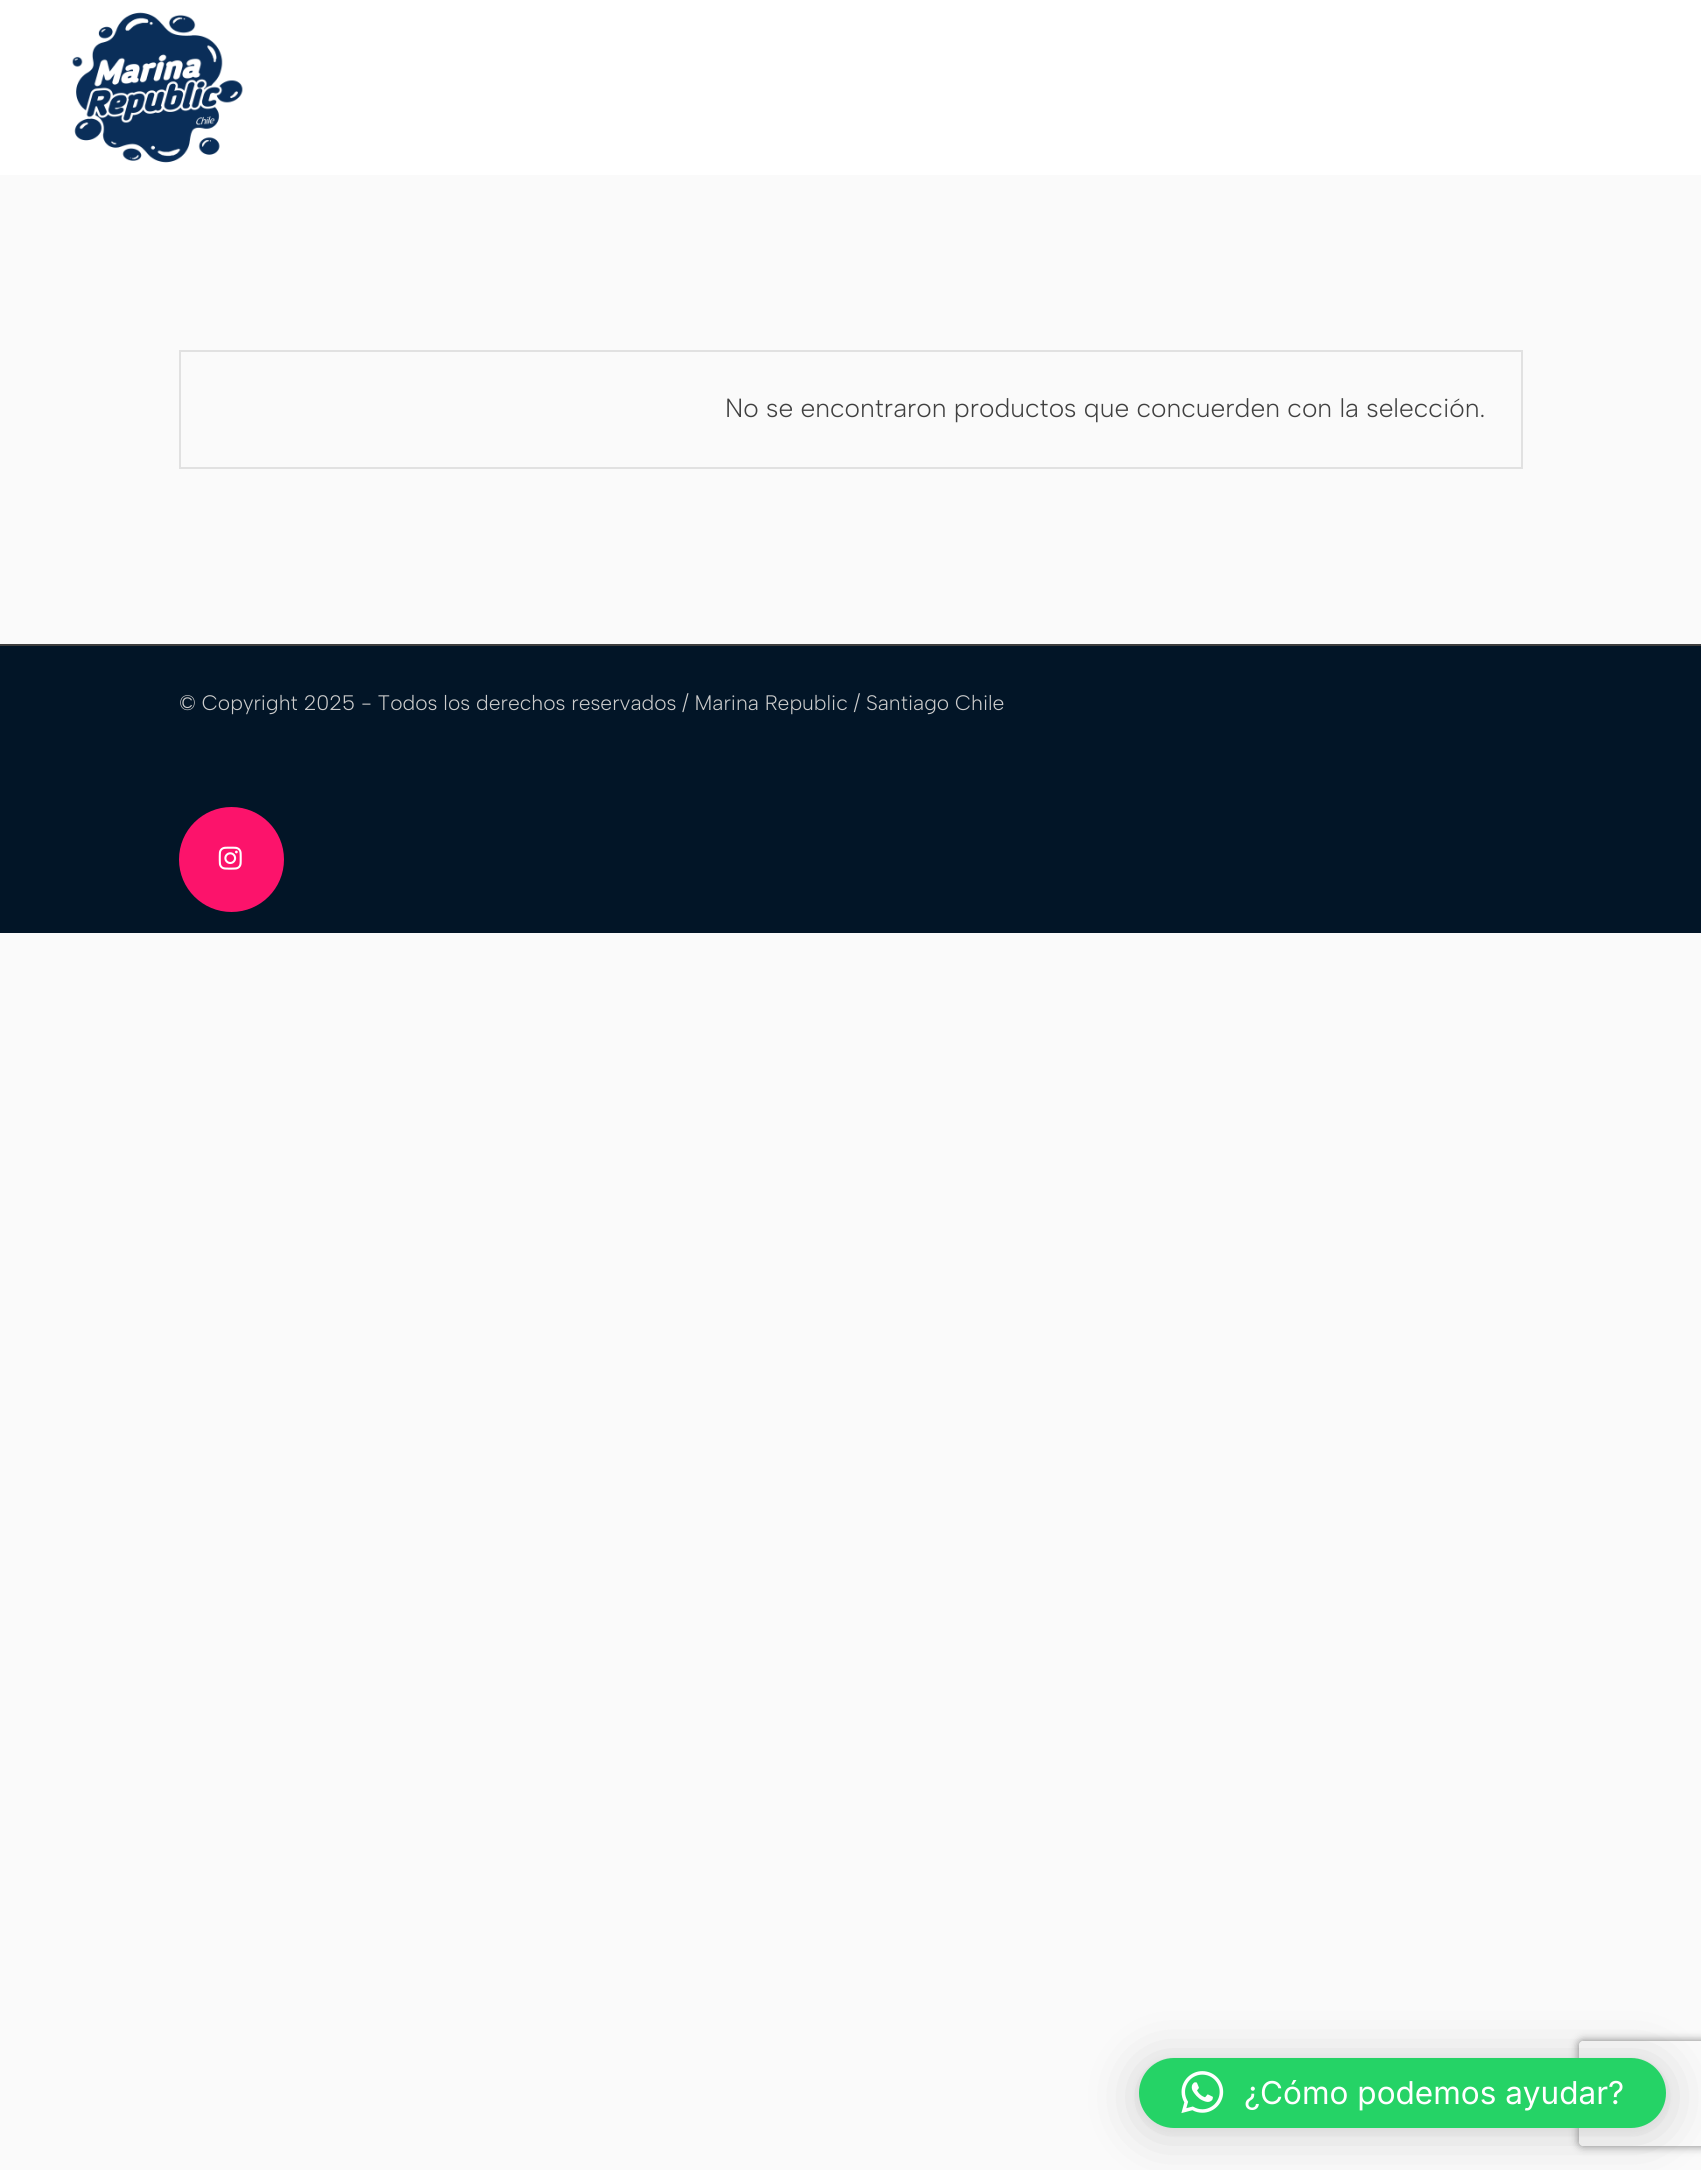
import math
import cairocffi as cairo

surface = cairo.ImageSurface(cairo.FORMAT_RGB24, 1701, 2170)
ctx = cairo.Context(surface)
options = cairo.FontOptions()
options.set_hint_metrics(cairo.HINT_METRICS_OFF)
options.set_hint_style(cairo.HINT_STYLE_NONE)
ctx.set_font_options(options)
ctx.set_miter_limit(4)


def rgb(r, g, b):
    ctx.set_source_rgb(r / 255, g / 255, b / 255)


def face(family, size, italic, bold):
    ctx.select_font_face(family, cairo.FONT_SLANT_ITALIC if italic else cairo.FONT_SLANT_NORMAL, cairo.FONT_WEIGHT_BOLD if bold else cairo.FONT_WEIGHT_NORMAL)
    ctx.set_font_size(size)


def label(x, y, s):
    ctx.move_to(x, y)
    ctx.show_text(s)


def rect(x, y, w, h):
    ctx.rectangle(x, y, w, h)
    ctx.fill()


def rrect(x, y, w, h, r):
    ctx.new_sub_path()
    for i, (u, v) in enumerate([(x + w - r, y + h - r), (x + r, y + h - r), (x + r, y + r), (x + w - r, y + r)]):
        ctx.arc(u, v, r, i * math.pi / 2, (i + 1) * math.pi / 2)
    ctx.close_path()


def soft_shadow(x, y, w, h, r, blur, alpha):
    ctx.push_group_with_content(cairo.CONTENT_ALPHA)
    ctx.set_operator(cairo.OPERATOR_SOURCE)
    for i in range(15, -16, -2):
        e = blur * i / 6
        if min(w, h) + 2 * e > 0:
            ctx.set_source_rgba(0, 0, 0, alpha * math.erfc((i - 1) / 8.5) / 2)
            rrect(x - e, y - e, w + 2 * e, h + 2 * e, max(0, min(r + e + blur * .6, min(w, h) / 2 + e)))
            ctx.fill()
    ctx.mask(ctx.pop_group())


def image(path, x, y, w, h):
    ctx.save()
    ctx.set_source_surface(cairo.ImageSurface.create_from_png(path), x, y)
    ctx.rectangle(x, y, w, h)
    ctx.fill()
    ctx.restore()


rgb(250, 250, 250)
ctx.paint()
rgb(255, 255, 255)
rect(0, 0, 1701, 175)
image('image0.png', 72, 12, 171, 151)
ctx.rectangle(180, 351, 1342, 117)
rgb(225, 225, 225)
ctx.stroke()
face('Albert Sans Light', 26.25, 0, 0)
rgb(64, 64, 64)
label(725, 417, 'No se encontraron productos que concuerden con la selección.')
rgb(2, 21, 39)
rect(0, 646, 1701, 287)
rgb(62, 62, 62)
rect(0, 644, 1701, 2)
face('Albert Sans Light', 21, 0, 0)
rgb(204, 204, 204)
label(179, 710, '© Copyright 2025 - Todos los derechos reservados / Marina Republic / Santiago Chile')
rgb(252, 19, 107)
ctx.new_path()
ctx.arc(231.5, 859.5, 52.5, 0, 2 * math.pi)
ctx.fill()
image('image1.png', 218, 846, 24, 24)
rgb(0, 0, 0)
soft_shadow(1139, 2062, 527, 70, 35, 28, 0.16)
soft_shadow(1139, 2060, 527, 70, 35, 5, 0.06)
ctx.save()
ctx.set_fill_rule(cairo.FILL_RULE_EVEN_ODD)
ctx.new_path()
ctx.move_to(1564, 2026)
ctx.line_to(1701, 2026)
ctx.line_to(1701, 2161)
ctx.line_to(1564, 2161)
ctx.close_path()
ctx.move_to(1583, 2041)
ctx.line_to(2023, 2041)
ctx.curve_to(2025, 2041, 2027, 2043, 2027, 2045)
ctx.line_to(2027, 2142)
ctx.curve_to(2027, 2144, 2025, 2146, 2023, 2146)
ctx.line_to(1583, 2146)
ctx.curve_to(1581, 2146, 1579, 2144, 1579, 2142)
ctx.line_to(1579, 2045)
ctx.curve_to(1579, 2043, 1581, 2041, 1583, 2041)
ctx.close_path()
ctx.clip()
rgb(128, 128, 128)
soft_shadow(1579, 2041, 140, 105, 4, 4.5, 1)
ctx.restore()
rgb(37, 211, 102)
rrect(1139, 2058, 527, 70, 35)
ctx.fill()
image('image2.png', 1181, 2071, 43, 43)
face('Inter', 31.5, 0, 0)
rgb(255, 255, 255)
label(1244, 2104, '¿Cómo podemos ayudar?')
surface.write_to_png('render.png')
